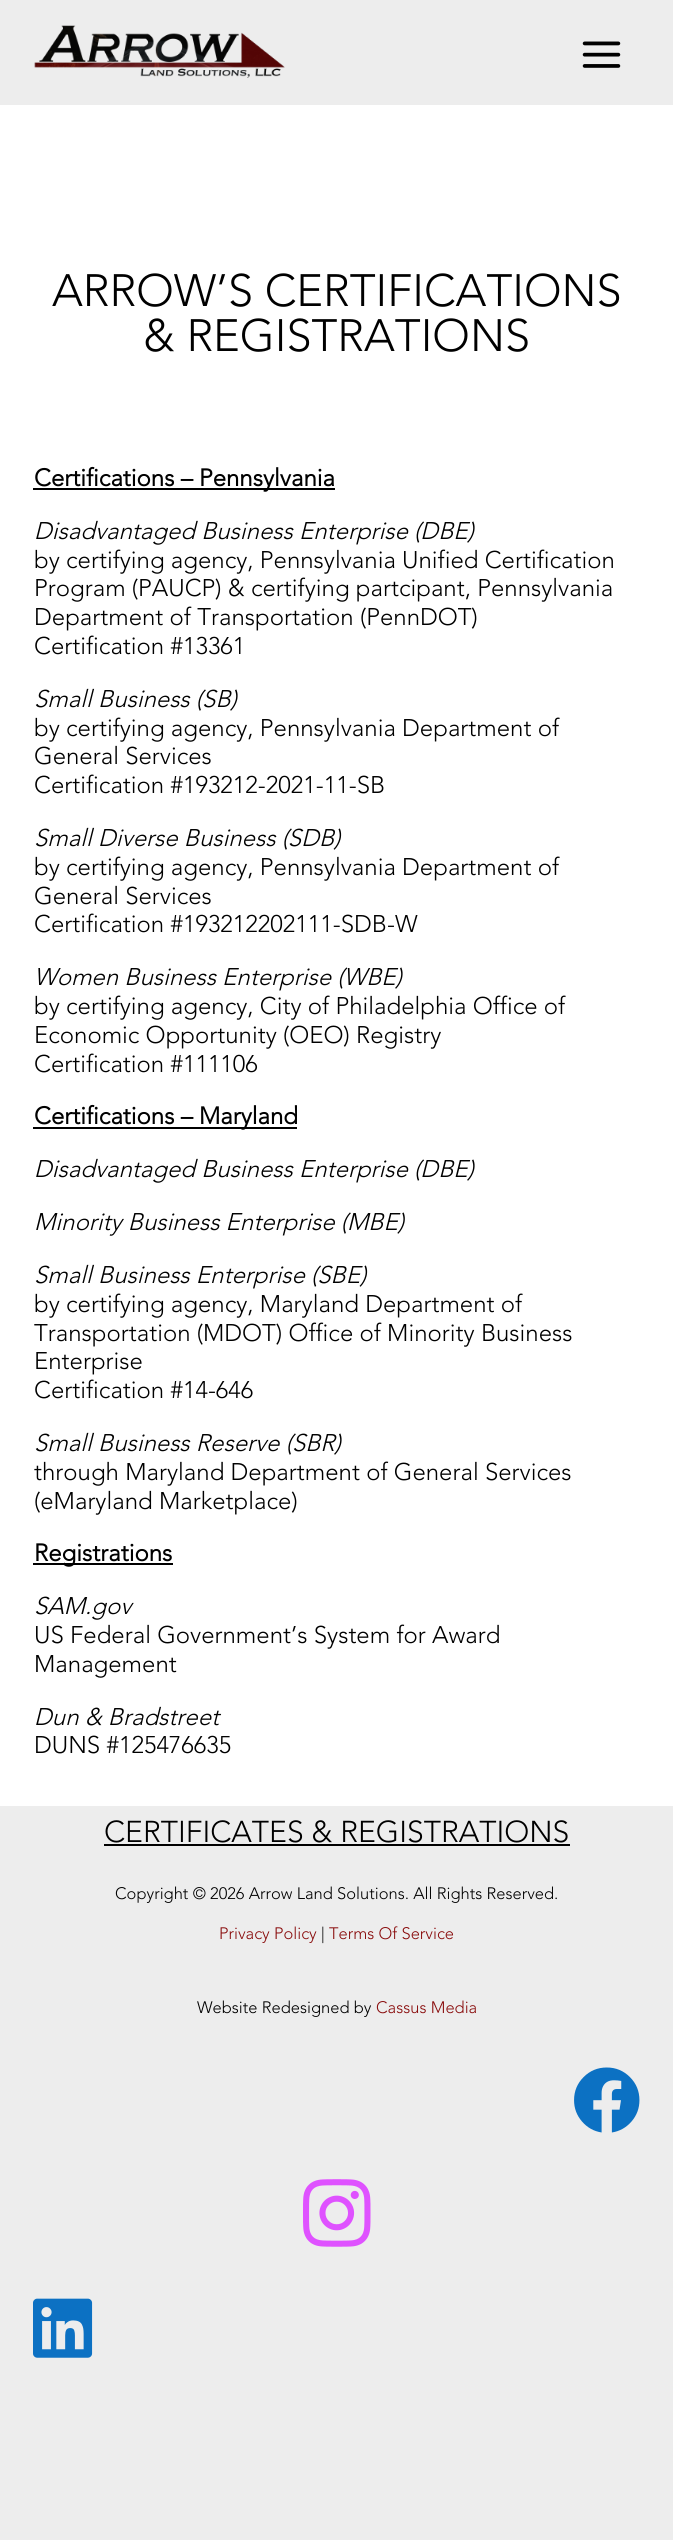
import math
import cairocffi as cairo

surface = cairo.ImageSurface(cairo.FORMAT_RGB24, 673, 2540)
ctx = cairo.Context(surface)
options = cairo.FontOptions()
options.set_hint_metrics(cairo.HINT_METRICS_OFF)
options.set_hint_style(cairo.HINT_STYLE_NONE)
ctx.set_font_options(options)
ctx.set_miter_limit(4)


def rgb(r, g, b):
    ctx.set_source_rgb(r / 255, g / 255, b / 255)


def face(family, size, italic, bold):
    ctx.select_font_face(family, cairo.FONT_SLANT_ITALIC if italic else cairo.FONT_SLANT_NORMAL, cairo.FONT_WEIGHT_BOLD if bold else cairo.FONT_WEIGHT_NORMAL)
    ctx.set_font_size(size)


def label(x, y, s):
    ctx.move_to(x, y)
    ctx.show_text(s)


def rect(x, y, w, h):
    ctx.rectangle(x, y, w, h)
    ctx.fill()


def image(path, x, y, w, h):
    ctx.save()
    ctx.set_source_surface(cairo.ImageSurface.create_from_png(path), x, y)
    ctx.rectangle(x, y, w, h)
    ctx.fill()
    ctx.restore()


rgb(237, 237, 237)
ctx.paint()
image('image0.png', 34, 25, 251, 53)
image('image1.png', 582, 41, 39, 27)
rgb(255, 255, 255)
rect(0, 105, 673, 1701)
face('Avenir Light', 45, 0, 0)
rgb(0, 0, 0)
label(52, 306, 'ARROW’S CERTIFICATIONS')
label(143, 351, '& REGISTRATIONS')
rect(33, 488, 302, 2)
face('Avenir', 24, 0, 1)
label(34, 486, 'Certifications – Pennsylvania')
face('Avenir Light', 24, 1, 0)
label(34, 539, 'Disadvantaged Business Enterprise (DBE)')
face('Avenir Light', 24, 0, 0)
label(34, 568, 'by certifying agency, Pennsylvania Unified Certification')
label(34, 596, 'Program (PAUCP) & certifying partcipant, Pennsylvania')
label(34, 625, 'Department of Transportation (PennDOT)')
label(34, 654, 'Certification #13361')
face('Avenir Light', 24, 1, 0)
label(34, 707, 'Small Business (SB)')
face('Avenir Light', 24, 0, 0)
label(34, 736, 'by certifying agency, Pennsylvania Department of')
label(34, 764, 'General Services')
label(34, 793, 'Certification #193212-2021-11-SB')
face('Avenir Light', 24, 1, 0)
label(34, 846, 'Small Diverse Business (SDB)')
face('Avenir Light', 24, 0, 0)
label(34, 875, 'by certifying agency, Pennsylvania Department of')
label(34, 904, 'General Services')
label(34, 932, 'Certification #193212202111-SDB-W')
face('Avenir Light', 24, 1, 0)
label(34, 985, 'Women Business Enterprise (WBE)')
face('Avenir Light', 24, 0, 0)
label(34, 1014, 'by certifying agency, City of Philadelphia Office of')
label(34, 1043, 'Economic Opportunity (OEO) Registry')
label(34, 1072, 'Certification #111106')
rect(33, 1127, 264, 2)
face('Avenir', 24, 0, 1)
label(34, 1124, 'Certifications – Maryland')
face('Avenir Light', 24, 1, 0)
label(34, 1177, 'Disadvantaged Business Enterprise (DBE)')
label(34, 1230, 'Minority Business Enterprise (MBE)')
label(34, 1283, 'Small Business Enterprise (SBE)')
face('Avenir Light', 24, 0, 0)
label(34, 1312, 'by certifying agency, Maryland Department of')
label(34, 1341, 'Transportation (MDOT) Office of Minority Business')
label(34, 1369, 'Enterprise')
label(34, 1398, 'Certification #14-646')
face('Avenir Light', 24, 1, 0)
label(34, 1451, 'Small Business Reserve (SBR)')
face('Avenir Light', 24, 0, 0)
label(34, 1480, 'through Maryland Department of General Services')
label(34, 1509, '(eMaryland Marketplace)')
rect(33, 1563, 140, 2)
face('Avenir', 24, 0, 1)
label(34, 1561, 'Registrations')
face('Avenir Light', 24, 1, 0)
label(34, 1614, 'SAM.gov')
face('Avenir Light', 24, 0, 0)
label(34, 1643, 'US Federal Government’s System for Award')
label(34, 1672, 'Management')
face('Avenir Light', 24, 1, 0)
label(34, 1725, 'Dun & Bradstreet')
face('Avenir Light', 24, 0, 0)
label(34, 1753, 'DUNS #125476635')
face('Avenir Light', 30, 0, 0)
label(104, 1842, 'CERTIFICATES & REGISTRATIONS')
rect(104, 1844, 466, 2)
face('Avenir Light', 16.5, 0, 0)
label(115, 1899, 'Copyright © 2026 Arrow Land Solutions. All Rights Reserved.')
rgb(137, 12, 12)
label(219, 1939, 'Privacy Policy')
rgb(0, 0, 0)
label(321, 1939, '|')
rgb(137, 12, 12)
label(329, 1939, 'Terms Of Service')
rgb(0, 0, 0)
label(197, 2013, 'Website Redesigned by')
rgb(137, 12, 12)
label(376, 2013, 'Cassus Media')
image('image2.png', 574, 2067, 66, 66)
image('image3.png', 303, 2179, 68, 68)
image('image4.png', 33, 2298, 60, 60)
surface.write_to_png('render.png')
